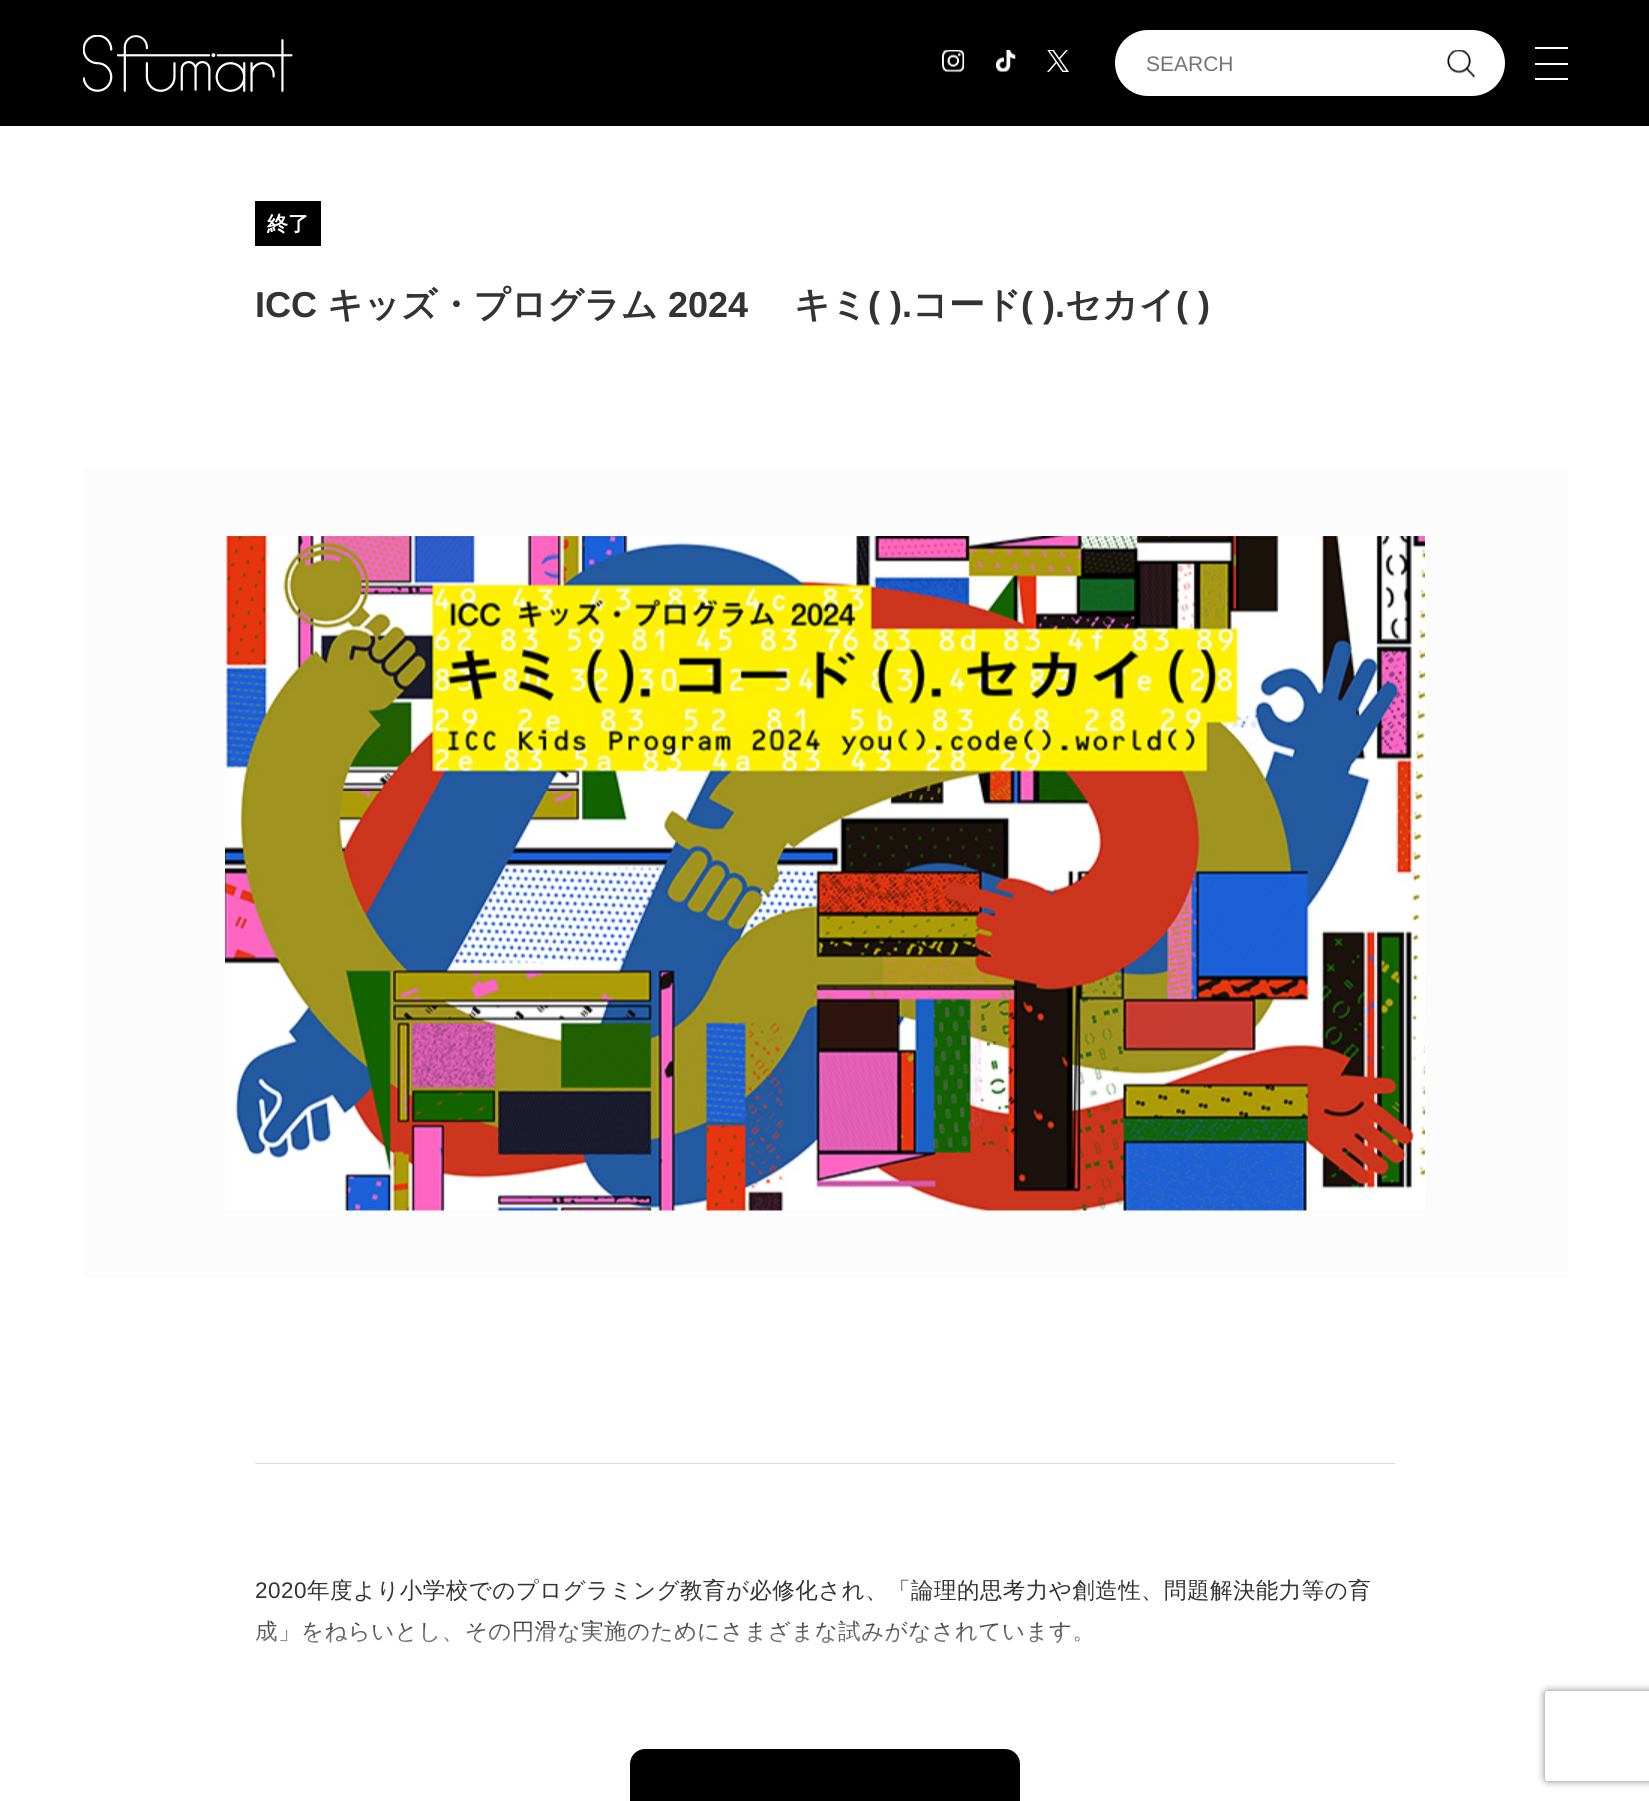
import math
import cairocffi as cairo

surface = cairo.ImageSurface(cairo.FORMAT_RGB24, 1649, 1801)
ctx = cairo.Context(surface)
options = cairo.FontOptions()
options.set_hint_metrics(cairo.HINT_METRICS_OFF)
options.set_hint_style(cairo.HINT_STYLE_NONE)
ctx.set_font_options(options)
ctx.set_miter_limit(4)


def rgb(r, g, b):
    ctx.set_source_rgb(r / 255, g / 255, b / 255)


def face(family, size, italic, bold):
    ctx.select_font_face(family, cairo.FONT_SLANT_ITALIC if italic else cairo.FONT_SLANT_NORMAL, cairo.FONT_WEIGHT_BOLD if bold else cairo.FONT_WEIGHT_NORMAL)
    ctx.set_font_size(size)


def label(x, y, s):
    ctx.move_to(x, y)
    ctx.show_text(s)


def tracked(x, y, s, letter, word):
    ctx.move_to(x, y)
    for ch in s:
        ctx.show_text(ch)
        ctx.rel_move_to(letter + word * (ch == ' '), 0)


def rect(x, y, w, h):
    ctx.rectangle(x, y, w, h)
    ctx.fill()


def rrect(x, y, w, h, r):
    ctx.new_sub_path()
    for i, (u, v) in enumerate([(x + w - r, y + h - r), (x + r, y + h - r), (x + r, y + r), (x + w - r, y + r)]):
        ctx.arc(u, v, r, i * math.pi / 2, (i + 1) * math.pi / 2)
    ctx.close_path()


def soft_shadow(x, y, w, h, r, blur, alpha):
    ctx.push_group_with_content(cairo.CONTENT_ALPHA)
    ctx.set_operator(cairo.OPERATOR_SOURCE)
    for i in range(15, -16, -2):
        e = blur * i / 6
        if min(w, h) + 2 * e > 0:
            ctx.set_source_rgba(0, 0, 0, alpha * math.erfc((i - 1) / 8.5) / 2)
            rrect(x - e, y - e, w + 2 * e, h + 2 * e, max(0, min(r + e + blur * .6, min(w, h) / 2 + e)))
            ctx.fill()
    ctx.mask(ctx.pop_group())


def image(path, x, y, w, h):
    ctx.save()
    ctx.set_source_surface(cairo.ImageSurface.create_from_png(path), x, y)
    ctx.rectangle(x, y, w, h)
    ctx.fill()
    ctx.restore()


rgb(255, 255, 255)
ctx.paint()
rgb(0, 0, 0)
rect(0, 0, 1649, 126)
image('image0.png', 83, 35, 210, 57)
image('image1.png', 942, 50, 23, 23)
image('image2.png', 996, 50, 20, 23)
image('image3.png', 1047, 50, 22, 22)
rgb(255, 255, 255)
rrect(1115, 30, 390, 66, 33)
ctx.fill()
face('Liberation Sans', 21, 0, 0)
rgb(117, 117, 117)
label(1146, 71, 'SEARCH')
image('image4.png', 1447, 50, 28, 27)
rgb(255, 255, 255)
rect(1535, 47, 33, 2)
rect(1535, 63, 33, 2)
rect(1535, 78, 33, 2)
rgb(0, 0, 0)
rect(255, 201, 66, 45)
face('WenQuanYi Zen Hei', 21, 0, 1)
rgb(255, 255, 255)
label(267, 231, '終了')
face('Liberation Sans', 36, 0, 1)
rgb(51, 51, 51)
label(255, 317, 'ICC')
face('WenQuanYi Zen Hei', 36, 0, 1)
label(327, 317, 'キッズ・プログラム')
face('Liberation Sans', 36, 0, 1)
label(668, 317, '2024')
face('WenQuanYi Zen Hei', 36, 0, 1)
label(794, 317, 'キミ')
face('Liberation Sans', 36, 0, 1)
label(868, 317, '( ).')
face('WenQuanYi Zen Hei', 36, 0, 1)
label(912, 317, 'コード')
face('Liberation Sans', 36, 0, 1)
label(1021, 317, '( ).')
face('WenQuanYi Zen Hei', 36, 0, 1)
label(1065, 317, 'セカイ')
face('Liberation Sans', 36, 0, 1)
label(1176, 317, '( )')
rgb(252, 252, 252)
rect(83, 468, 1485, 810)
image('image5.png', 225, 536, 1200, 675)
rgb(221, 221, 221)
rect(255, 1463, 1140, 1)
face('Liberation Sans', 22.5, 0, 0)
rgb(51, 51, 51)
tracked(255, 1598, '2020', 0.45, 0)
face('WenQuanYi Zen Hei Medium', 22.5, 0, 0)
tracked(307, 1598, '年度より小学校でのプログラミング教育が必修化され、「論理的思考力や創造性、問題解決能力等の育', 0.45, 0)
tracked(255, 1639, '成」をねらいとし、その円滑な実施のためにさまざまな試みがなされています。', 0.45, 0)
gradient = cairo.LinearGradient(825, 1689, 825, 1617)
gradient.add_color_stop_rgba(0, 1, 1, 1, 1)
gradient.add_color_stop_rgba(1, 1, 1, 1, 0)
ctx.set_source(gradient)
rect(255, 1620, 825, 24)
rgb(0, 0, 0)
rrect(631.5, 1750.5, 387, 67, 13.5)
ctx.fill_preserve()
ctx.set_line_width(3)
ctx.stroke()
ctx.save()
ctx.set_fill_rule(cairo.FILL_RULE_EVEN_ODD)
ctx.new_path()
ctx.move_to(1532, 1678)
ctx.line_to(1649, 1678)
ctx.line_to(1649, 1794)
ctx.line_to(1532, 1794)
ctx.close_path()
ctx.move_to(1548, 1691)
ctx.line_to(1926, 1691)
ctx.curve_to(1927.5, 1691, 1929, 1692.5, 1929, 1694)
ctx.line_to(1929, 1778)
ctx.curve_to(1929, 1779.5, 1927.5, 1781, 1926, 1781)
ctx.line_to(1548, 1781)
ctx.curve_to(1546.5, 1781, 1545, 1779.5, 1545, 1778)
ctx.line_to(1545, 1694)
ctx.curve_to(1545, 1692.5, 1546.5, 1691, 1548, 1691)
ctx.close_path()
ctx.clip()
rgb(128, 128, 128)
soft_shadow(1545, 1691, 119, 90, 3, 4, 1)
ctx.restore()
surface.write_to_png('render.png')
